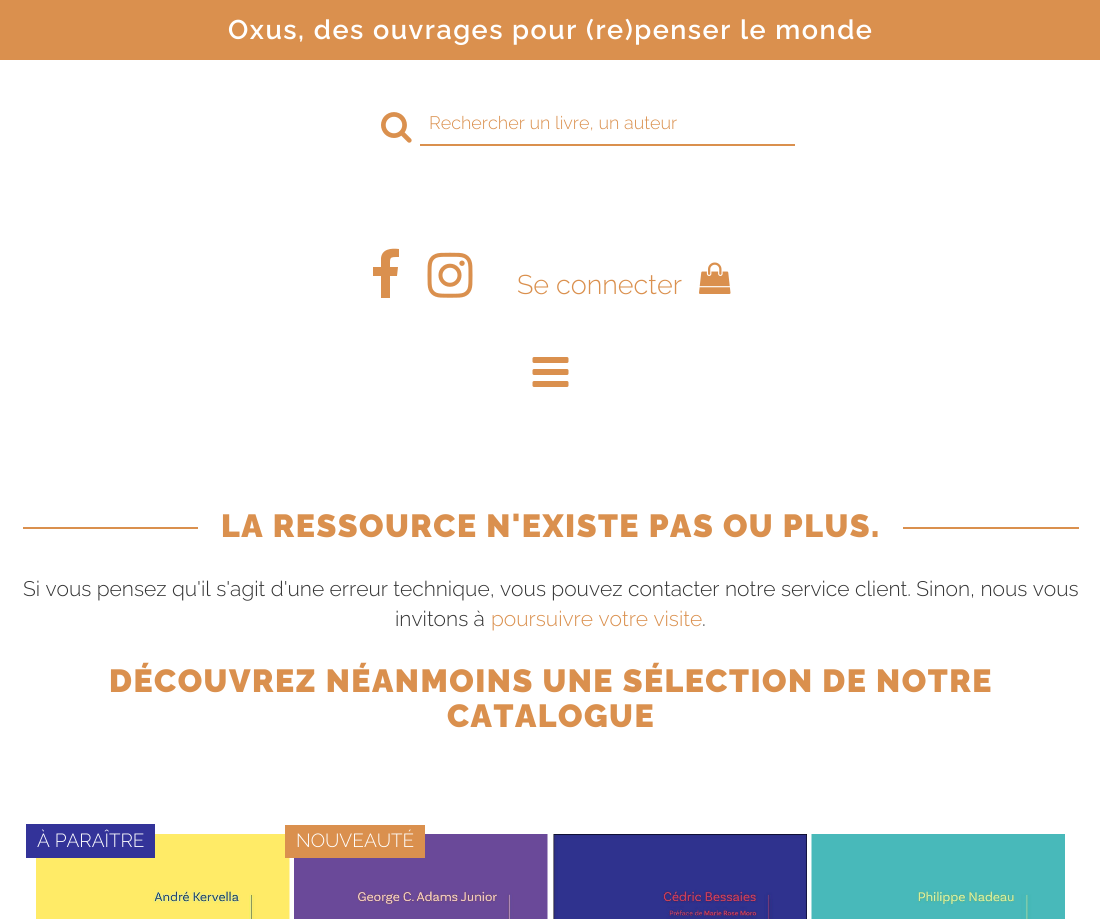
import math
import cairocffi as cairo

surface = cairo.ImageSurface(cairo.FORMAT_RGB24, 1100, 919)
ctx = cairo.Context(surface)
options = cairo.FontOptions()
options.set_hint_metrics(cairo.HINT_METRICS_OFF)
options.set_hint_style(cairo.HINT_STYLE_NONE)
ctx.set_font_options(options)
ctx.set_miter_limit(4)


def rgb(r, g, b):
    ctx.set_source_rgb(r / 255, g / 255, b / 255)


def face(family, size, italic, bold):
    ctx.select_font_face(family, cairo.FONT_SLANT_ITALIC if italic else cairo.FONT_SLANT_NORMAL, cairo.FONT_WEIGHT_BOLD if bold else cairo.FONT_WEIGHT_NORMAL)
    ctx.set_font_size(size)


def label(x, y, s):
    ctx.move_to(x, y)
    ctx.show_text(s)


def tracked(x, y, s, letter, word):
    ctx.move_to(x, y)
    for ch in s:
        ctx.show_text(ch)
        ctx.rel_move_to(letter + word * (ch == ' '), 0)


def rect(x, y, w, h):
    ctx.rectangle(x, y, w, h)
    ctx.fill()


def image(path, x, y, w, h):
    ctx.save()
    ctx.set_source_surface(cairo.ImageSurface.create_from_png(path), x, y)
    ctx.rectangle(x, y, w, h)
    ctx.fill()
    ctx.restore()


rgb(255, 255, 255)
ctx.paint()
rgb(218, 144, 78)
rect(0, 0, 1100, 60)
face('Raleway SemiBold', 27, 0, 0)
rgb(255, 255, 255)
tracked(228, 39, 'Oxus, des ouvrages pour (re)penser le monde', 1.5, 0)
image('image0.png', 381, 112, 31, 31)
rgb(218, 144, 78)
rect(420, 144, 375, 2)
face('Raleway Light', 18, 0, 0)
label(429, 129, 'Rechercher un livre, un auteur')
ctx.new_path()
ctx.move_to(399, 249)
ctx.line_to(399, 257)
ctx.curve_to(389, 257, 390, 257, 390, 267)
ctx.line_to(398, 267)
ctx.line_to(397, 276)
ctx.line_to(390, 276)
ctx.line_to(390, 298)
ctx.line_to(381, 298)
ctx.line_to(381, 276)
ctx.line_to(373, 276)
ctx.line_to(373, 267)
ctx.line_to(381, 267)
ctx.line_to(381, 258)
ctx.curve_to(382, 249, 391, 248, 399, 249)
ctx.close_path()
ctx.fill()
image('image1.png', 427, 252, 46, 46)
face('Raleway Light', 27, 0, 0)
label(517, 294, 'Se connecter')
image('image2.png', 699, 262, 32, 32)
image('image3.png', 532, 357, 37, 30)
rect(23, 527, 175, 2)
face('Raleway Black', 32, 0, 0)
tracked(221, 537, 'LA RESSOURCE N\'EXISTE PAS OU PLUS.', 1.5, 0)
rect(903, 527, 176, 2)
face('Raleway Light', 21, 0, 0)
rgb(51, 51, 51)
label(23, 596, 'Si vous pensez qu\'il s\'agit d\'une erreur technique, vous pouvez contacter notre service client. Sinon, nous vous')
label(395, 626, 'invitons à')
rgb(218, 144, 78)
label(491, 626, 'poursuivre votre visite')
rgb(51, 51, 51)
label(702, 626, '.')
face('Raleway Black', 32, 0, 0)
rgb(218, 144, 78)
tracked(109, 692, 'DÉCOUVREZ NÉANMOINS UNE SÉLECTION DE NOTRE', 1.5, 0)
tracked(447, 727, 'CATALOGUE', 1.5, 0)
image('image4.png', 36, 834, 254, 85)
rgb(51, 51, 153)
rect(26, 824, 129, 34)
face('Raleway Light', 19, 0, 0)
rgb(255, 255, 255)
label(37, 847, 'À PARAÎTRE')
image('image5.png', 294, 834, 254, 85)
rgb(218, 144, 78)
rect(285, 825, 140, 33)
rgb(255, 255, 255)
label(296, 847, 'NOUVEAUTÉ')
image('image6.png', 553, 834, 254, 85)
image('image7.png', 811, 834, 254, 85)
surface.write_to_png('render.png')
